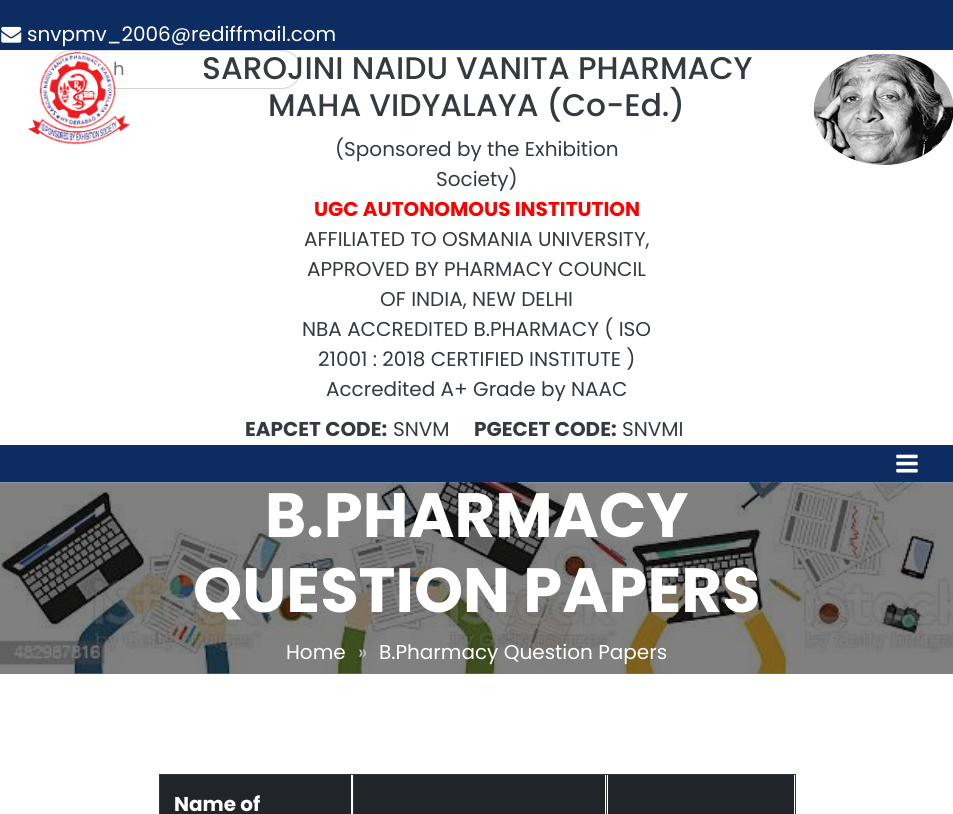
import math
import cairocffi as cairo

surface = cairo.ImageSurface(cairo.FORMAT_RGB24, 953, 814)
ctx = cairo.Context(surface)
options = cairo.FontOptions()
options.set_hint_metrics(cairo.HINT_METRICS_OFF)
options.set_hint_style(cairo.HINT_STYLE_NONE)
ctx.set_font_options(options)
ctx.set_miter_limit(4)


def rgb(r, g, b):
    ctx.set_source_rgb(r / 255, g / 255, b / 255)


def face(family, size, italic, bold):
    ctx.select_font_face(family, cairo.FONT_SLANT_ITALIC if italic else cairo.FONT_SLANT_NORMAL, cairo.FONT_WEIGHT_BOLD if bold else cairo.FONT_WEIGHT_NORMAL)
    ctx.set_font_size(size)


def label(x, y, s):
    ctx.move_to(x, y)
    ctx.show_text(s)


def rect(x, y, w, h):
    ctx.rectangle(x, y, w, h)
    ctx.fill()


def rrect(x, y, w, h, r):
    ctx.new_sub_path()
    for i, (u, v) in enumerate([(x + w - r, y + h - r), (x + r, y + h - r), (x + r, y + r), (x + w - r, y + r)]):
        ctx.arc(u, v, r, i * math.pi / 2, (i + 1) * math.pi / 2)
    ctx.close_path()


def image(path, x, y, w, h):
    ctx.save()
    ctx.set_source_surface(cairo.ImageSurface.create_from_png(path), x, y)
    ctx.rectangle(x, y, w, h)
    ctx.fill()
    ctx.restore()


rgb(255, 255, 255)
ctx.paint()
rgb(128, 128, 128)
rect(0, 673, 953, 1)
rgb(13, 45, 98)
rect(0, 0, 953, 50)
image('image0.png', 1, 26, 21, 17)
face('Poppins', 20, 0, 0)
rgb(255, 255, 255)
label(27, 41, 'snvpmv_2006@rediffmail.com')
rrect(51.5, 50.5, 249, 38, 19)
rgb(206, 212, 218)
ctx.set_line_width(1)
ctx.stroke()
face('Poppins', 18, 0, 0)
rgb(108, 117, 125)
label(113, 75, 'h')
image('image1.png', 28, 51, 103, 94)
face('Poppins Medium', 31.25, 0, 0)
rgb(52, 58, 64)
label(202, 79, 'SAROJINI NAIDU VANITA PHARMACY')
label(268, 116, 'MAHA VIDYALAYA (Co-Ed.)')
face('Poppins', 20, 0, 0)
label(335, 156, '(Sponsored by the Exhibition')
label(436, 186, 'Society)')
face('Poppins', 20, 0, 1)
rgb(255, 0, 0)
label(314, 216, 'UGC AUTONOMOUS INSTITUTION')
face('Poppins', 20, 0, 0)
rgb(52, 58, 64)
label(304, 246, 'AFFILIATED TO OSMANIA UNIVERSITY,')
label(307, 276, 'APPROVED BY PHARMACY COUNCIL')
label(380, 306, 'OF INDIA, NEW DELHI')
label(302, 336, 'NBA ACCREDITED B.PHARMACY ( ISO')
label(318, 366, '21001 : 2018 CERTIFIED INSTITUTE )')
label(326, 396, 'Accredited A+ Grade by NAAC')
face('Poppins', 20, 0, 1)
label(245, 436, 'EAPCET CODE:')
face('Poppins', 20, 0, 0)
label(393, 436, 'SNVM')
face('Poppins', 20, 0, 1)
label(474, 436, 'PGECET CODE:')
face('Poppins', 20, 0, 0)
label(622, 436, 'SNVMI')
image('image2.png', 813, 53, 140, 112)
rgb(13, 45, 98)
rect(0, 445, 953, 38)
image('image3.png', 896, 454, 22, 19)
image('image4.png', 0, 482, 953, 192)
face('Poppins', 62.5, 0, 1)
rgb(255, 255, 255)
label(265, 537, 'B.PHARMACY')
label(193, 612, 'QUESTION PAPERS')
face('Poppins', 20, 0, 0)
label(286, 659, 'Home')
rgb(204, 204, 204)
label(358, 659, '»')
rgb(255, 255, 255)
label(379, 659, 'B.Pharmacy Question Papers')
rgb(33, 37, 41)
rect(160, 775, 191, 39)
rgb(50, 56, 62)
rect(606, 774, 190, 1)
rect(606, 774, 1, 40)
rect(353, 774, 255, 1)
rect(353, 774, 1, 40)
rect(159, 774, 195, 1)
rect(159, 774, 1, 40)
face('Poppins', 20, 0, 1)
rgb(255, 255, 255)
label(174, 811, 'Name of')
rgb(33, 37, 41)
rect(354, 775, 251, 39)
rect(608, 775, 186, 39)
rgb(50, 56, 62)
rect(795, 774, 1, 40)
surface.write_to_png('render.png')
